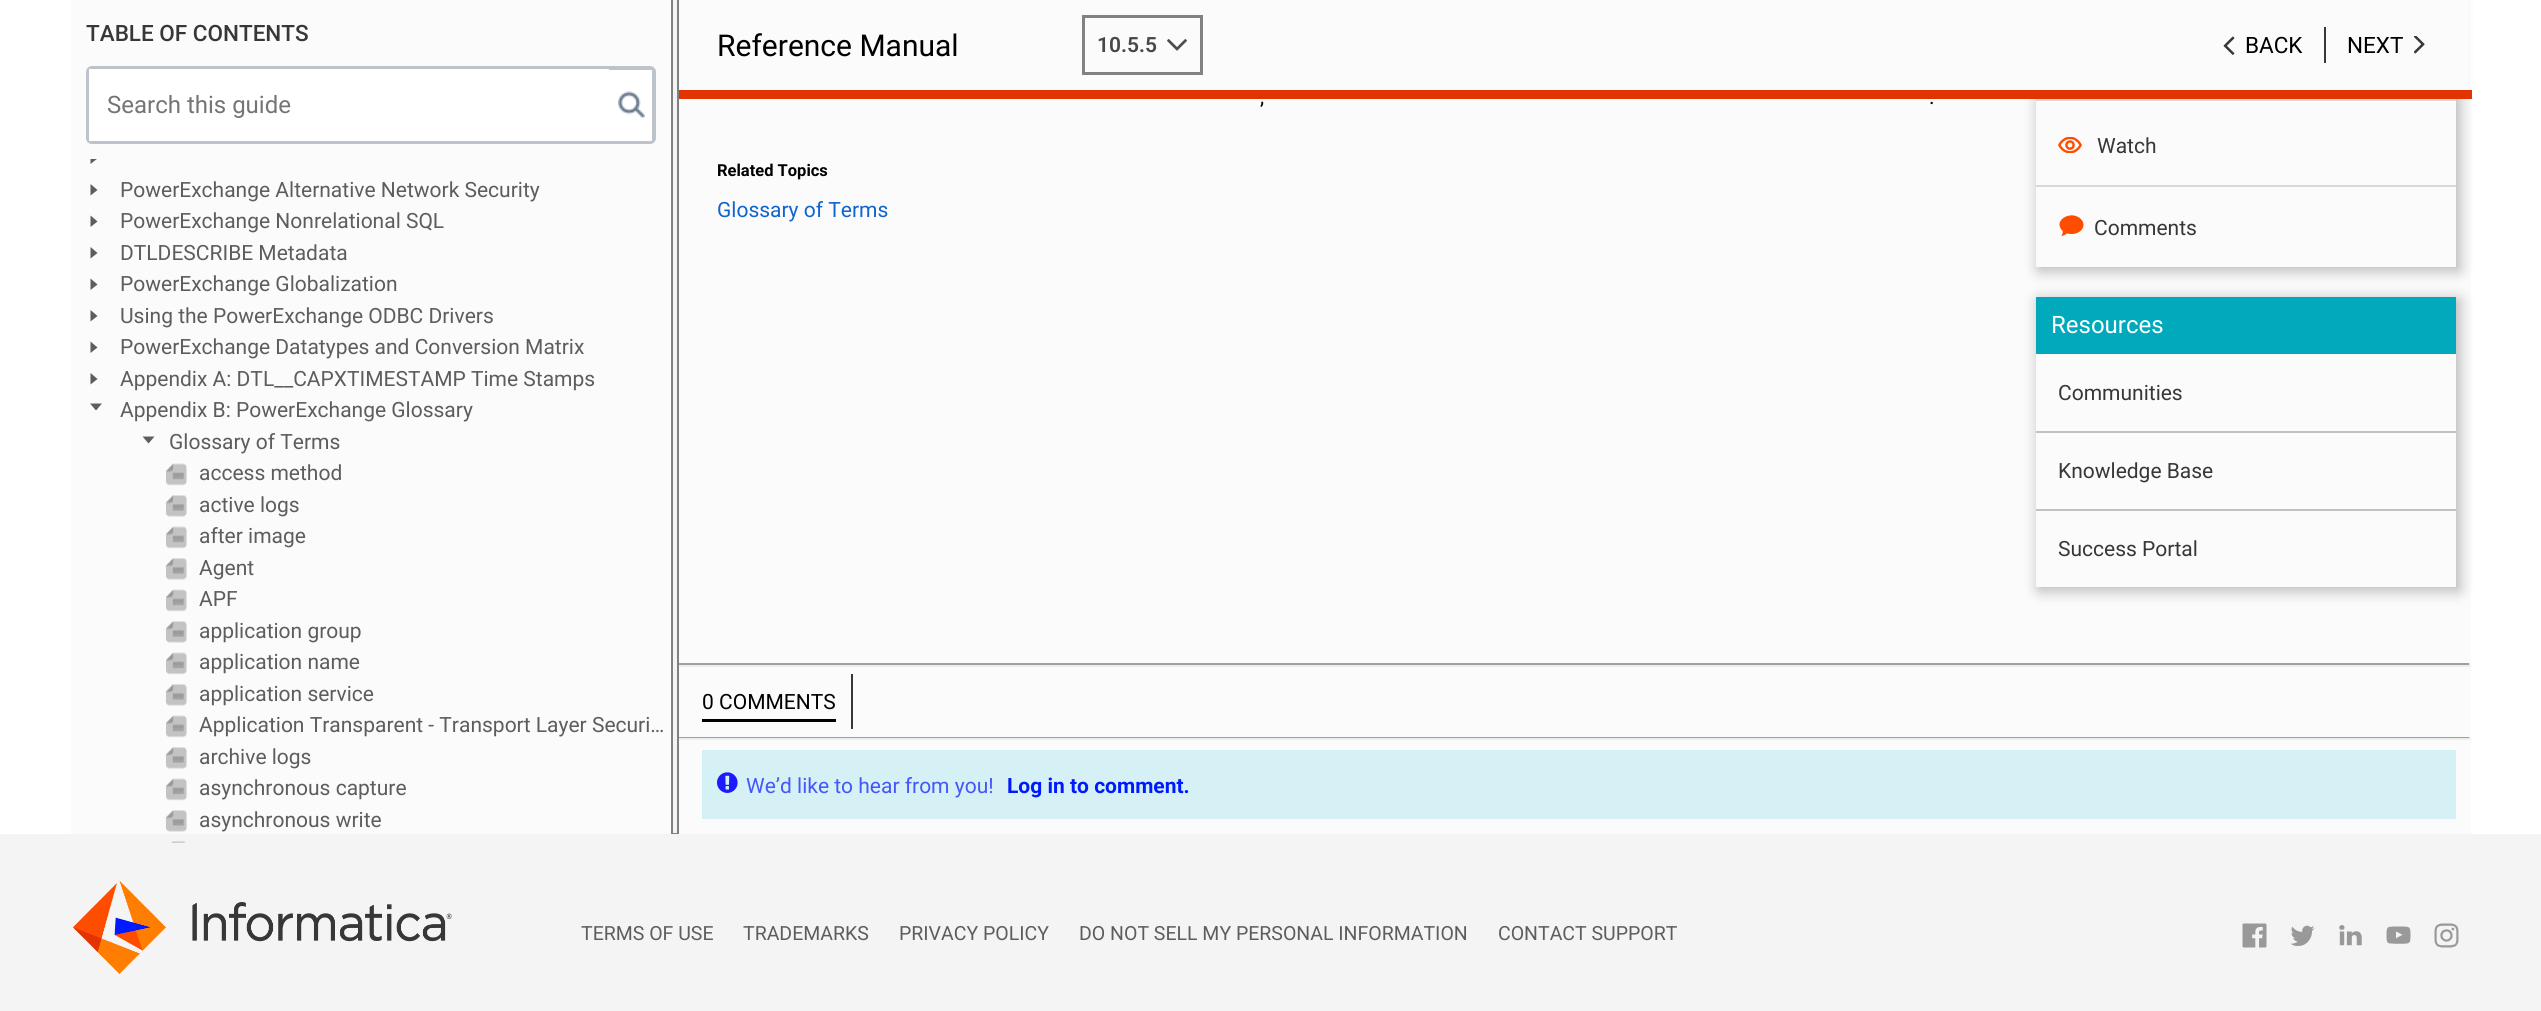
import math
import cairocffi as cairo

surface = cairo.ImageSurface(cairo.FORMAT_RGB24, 2541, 1011)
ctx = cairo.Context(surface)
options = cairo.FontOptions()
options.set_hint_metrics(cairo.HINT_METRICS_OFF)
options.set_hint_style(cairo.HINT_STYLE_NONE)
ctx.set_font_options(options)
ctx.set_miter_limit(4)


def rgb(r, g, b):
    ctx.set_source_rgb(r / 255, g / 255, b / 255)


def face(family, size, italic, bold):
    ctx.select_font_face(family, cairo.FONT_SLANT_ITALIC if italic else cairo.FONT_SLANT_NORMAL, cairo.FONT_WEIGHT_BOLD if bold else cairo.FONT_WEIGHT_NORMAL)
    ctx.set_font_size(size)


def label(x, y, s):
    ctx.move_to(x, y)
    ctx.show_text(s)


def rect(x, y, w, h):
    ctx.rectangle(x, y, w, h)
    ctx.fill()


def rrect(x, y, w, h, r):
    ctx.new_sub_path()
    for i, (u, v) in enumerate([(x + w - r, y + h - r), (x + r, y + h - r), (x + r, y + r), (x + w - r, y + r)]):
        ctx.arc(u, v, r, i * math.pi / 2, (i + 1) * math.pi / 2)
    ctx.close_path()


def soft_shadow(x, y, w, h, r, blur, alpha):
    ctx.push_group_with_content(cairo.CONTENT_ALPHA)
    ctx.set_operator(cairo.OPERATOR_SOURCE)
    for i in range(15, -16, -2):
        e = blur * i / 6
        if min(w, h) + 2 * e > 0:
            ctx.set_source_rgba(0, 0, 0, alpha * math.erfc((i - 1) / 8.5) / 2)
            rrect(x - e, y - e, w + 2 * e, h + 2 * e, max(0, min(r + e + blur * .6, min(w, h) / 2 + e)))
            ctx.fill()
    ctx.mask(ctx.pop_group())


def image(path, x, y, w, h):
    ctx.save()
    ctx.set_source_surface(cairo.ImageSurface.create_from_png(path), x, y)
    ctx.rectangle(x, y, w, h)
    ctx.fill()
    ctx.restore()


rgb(255, 255, 255)
ctx.paint()
rgb(251, 251, 251)
rect(71, 159, 600, 675)
rgb(93, 93, 93)
ctx.new_path()
ctx.move_to(90.5, 152.5)
ctx.line_to(97.5, 158.5)
ctx.line_to(90.5, 164)
ctx.close_path()
ctx.fill()
rgb(251, 251, 251)
rect(71, 0, 600, 159)
face('Roboto Medium', 22.5, 0, 0)
rgb(55, 55, 55)
label(86, 41, 'TABLE OF CONTENTS')
rgb(255, 255, 255)
rrect(87, 67, 568, 76, 5)
ctx.fill_preserve()
rgb(188, 195, 202)
ctx.stroke()
rrect(88, 69, 565, 73, 2)
ctx.stroke()
rgb(255, 255, 255)
rect(89, 69, 520, 72)
face('Roboto', 24, 0, 0)
rgb(117, 117, 117)
label(107, 113, 'Search this guide')
image('image0.png', 618, 91, 27, 28)
rgb(251, 251, 251)
rect(679, 99, 1792, 735)
rgb(159, 159, 159)
rect(672, 663, 1799, 2)
rgb(238, 238, 238)
rect(2469, 663, 2, 3)
rect(672, 665, 1799, 2)
rgb(159, 159, 159)
rect(672, 737, 1799, 1)
rgb(238, 238, 238)
rect(2469, 737, 2, 3)
rect(672, 738, 1799, 2)
rgb(244, 244, 244)
rect(673, 0, 4, 834)
rgb(128, 128, 128)
rect(677, 0, 2, 834)
rect(671, 833, 7, 1)
rect(671, 0, 2, 834)
rgb(93, 93, 93)
ctx.new_path()
ctx.move_to(90.5, 184)
ctx.line_to(97.5, 190)
ctx.line_to(90.5, 195.5)
ctx.close_path()
ctx.fill()
face('Roboto', 21, 0, 0)
label(120, 197, 'PowerExchange Alternative Network Security')
ctx.new_path()
ctx.move_to(90.5, 215.5)
ctx.line_to(97.5, 221.5)
ctx.line_to(90.5, 227)
ctx.close_path()
ctx.fill()
label(120, 228, 'PowerExchange Nonrelational SQL')
ctx.new_path()
ctx.move_to(90.5, 247)
ctx.line_to(97.5, 253)
ctx.line_to(90.5, 258.5)
ctx.close_path()
ctx.fill()
label(120, 260, 'DTLDESCRIBE Metadata')
ctx.new_path()
ctx.move_to(90.5, 278.5)
ctx.line_to(97.5, 284.5)
ctx.line_to(90.5, 290)
ctx.close_path()
ctx.fill()
label(120, 291, 'PowerExchange Globalization')
ctx.new_path()
ctx.move_to(90.5, 310)
ctx.line_to(97.5, 316)
ctx.line_to(90.5, 321.5)
ctx.close_path()
ctx.fill()
label(120, 323, 'Using the PowerExchange ODBC Drivers')
ctx.new_path()
ctx.move_to(90.5, 341.5)
ctx.line_to(97.5, 347.5)
ctx.line_to(90.5, 353)
ctx.close_path()
ctx.fill()
label(120, 354, 'PowerExchange Datatypes and Conversion Matrix')
ctx.new_path()
ctx.move_to(90.5, 373)
ctx.line_to(97.5, 379)
ctx.line_to(90.5, 384.5)
ctx.close_path()
ctx.fill()
label(120, 386, 'Appendix A: DTL__CAPXTIMESTAMP Time Stamps')
ctx.new_path()
ctx.move_to(102, 403.5)
ctx.line_to(96, 410.5)
ctx.line_to(90, 403.5)
ctx.close_path()
ctx.fill()
label(120, 417, 'Appendix B: PowerExchange Glossary')
ctx.new_path()
ctx.move_to(154.5, 436.5)
ctx.line_to(148.5, 443.5)
ctx.line_to(142.5, 436.5)
ctx.close_path()
ctx.fill()
label(169, 449, 'Glossary of Terms')
image('image1.png', 166, 463, 21, 23)
label(199, 480, 'access method')
image('image2.png', 165, 495, 22, 22)
label(199, 512, 'active logs')
image('image3.png', 166, 526, 21, 23)
label(199, 543, 'after image')
image('image2.png', 165, 558, 22, 22)
label(199, 575, 'Agent')
image('image3.png', 166, 589, 21, 23)
label(199, 606, 'APF')
image('image2.png', 165, 621, 22, 22)
label(199, 638, 'application group')
image('image3.png', 166, 652, 21, 23)
label(199, 669, 'application name')
image('image2.png', 165, 684, 22, 22)
label(199, 701, 'application service')
image('image3.png', 166, 715, 21, 23)
label(199, 732, 'Application Transparent - Transport Layer Securi…')
image('image2.png', 165, 747, 22, 22)
label(199, 764, 'archive logs')
image('image3.png', 166, 778, 21, 23)
label(199, 795, 'asynchronous capture')
image('image2.png', 165, 810, 22, 22)
label(199, 827, 'asynchronous write')
rgb(244, 244, 244)
rect(0, 834, 2541, 177)
image('image4.png', 171, 841, 15, 2)
ctx.save()
ctx.set_fill_rule(cairo.FILL_RULE_EVEN_ODD)
ctx.new_path()
ctx.move_to(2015, 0)
ctx.line_to(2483, 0)
ctx.line_to(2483, 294)
ctx.line_to(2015, 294)
ctx.close_path()
ctx.move_to(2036, -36)
ctx.line_to(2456, -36)
ctx.line_to(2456, 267)
ctx.line_to(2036, 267)
ctx.close_path()
ctx.clip()
rgb(0, 0, 0)
soft_shadow(2039, -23, 420, 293, 0, 7.5, 0.3)
ctx.restore()
rgb(251, 251, 251)
rect(679, 0, 1790, 90)
face('Roboto', 30, 0, 0)
rgb(0, 0, 0)
label(717, 56, 'Reference Manual')
ctx.rectangle(1083.5, 16.5, 118, 57)
rgb(130, 130, 130)
ctx.set_line_width(3)
ctx.stroke()
face('Roboto SemiBold', 21, 0, 0)
rgb(72, 72, 72)
label(1097, 52, '10.5.5')
image('image5.png', 1167, 39, 20, 12)
image('image6.png', 2223, 36, 12, 19)
face('Roboto', 22.5, 0, 0)
rgb(0, 0, 0)
label(2245, 53, 'BACK')
rgb(55, 55, 55)
rect(2324, 27, 2, 36)
rgb(0, 0, 0)
label(2347, 53, 'NEXT')
image('image7.png', 2414, 36, 11, 18)
rgb(226, 52, 0)
rect(679, 90, 1793, 9)
face('Roboto', 21, 0, 0)
rgb(0, 0, 0)
label(1260, 104, ',')
label(1929, 104, '.')
face('Roboto', 16.5, 0, 1)
label(717, 176, 'Related Topics')
face('Roboto', 21, 0, 0)
rgb(15, 100, 205)
label(717, 217, 'Glossary of Terms')
rgb(216, 216, 216)
rect(2036, 99, 420, 2)
rect(2036, 185, 420, 2)
image('image8.png', 2058, 137, 24, 16)
rgb(55, 55, 55)
label(2097, 153, 'Watch')
image('image9.png', 2059, 215, 25, 21)
label(2094, 235, 'Comments')
ctx.save()
ctx.set_fill_rule(cairo.FILL_RULE_EVEN_ODD)
ctx.new_path()
ctx.move_to(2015, 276)
ctx.line_to(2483, 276)
ctx.line_to(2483, 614)
ctx.line_to(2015, 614)
ctx.close_path()
ctx.move_to(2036, 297)
ctx.line_to(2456, 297)
ctx.line_to(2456, 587)
ctx.line_to(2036, 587)
ctx.close_path()
ctx.clip()
rgb(0, 0, 0)
soft_shadow(2039, 300, 420, 290, 0, 7.5, 0.3)
ctx.restore()
rgb(0, 169, 187)
rect(2036, 297, 420, 57)
face('Roboto', 24, 0, 0)
rgb(255, 255, 255)
label(2051, 333, 'Resources')
rgb(193, 193, 193)
rect(2036, 431, 420, 2)
face('Roboto', 21, 0, 0)
rgb(55, 55, 55)
label(2058, 400, 'Communities')
rgb(193, 193, 193)
rect(2036, 509, 420, 2)
rgb(55, 55, 55)
label(2058, 478, 'Knowledge Base')
label(2058, 556, 'Success Portal')
rgb(0, 0, 0)
rect(702, 719, 134, 3)
label(702, 709, '0 COMMENTS')
rgb(55, 55, 55)
rect(851, 674, 2, 55)
rgb(213, 241, 245)
rect(702, 750, 1754, 69)
image('image10.png', 717, 772, 21, 21)
rgb(69, 87, 249)
label(746, 793, 'We’d like to hear from you!')
face('Roboto', 21, 0, 1)
rgb(0, 26, 255)
label(1007, 793, 'Log in to comment.')
image('image11.png', 72, 880, 380, 94)
face('Roboto', 19.5, 0, 0)
rgb(93, 93, 93)
label(581, 940, 'TERMS OF USE')
label(743, 940, 'TRADEMARKS')
label(899, 940, 'PRIVACY POLICY')
label(1079, 940, 'DO NOT SELL MY PERSONAL INFORMATION')
label(1498, 940, 'CONTACT SUPPORT')
image('image12.png', 2242, 923, 25, 25)
image('image13.png', 2290, 925, 25, 21)
image('image14.png', 2339, 925, 23, 21)
image('image15.png', 2386, 926, 25, 18)
image('image16.png', 2434, 923, 25, 25)
surface.write_to_png('render.png')
